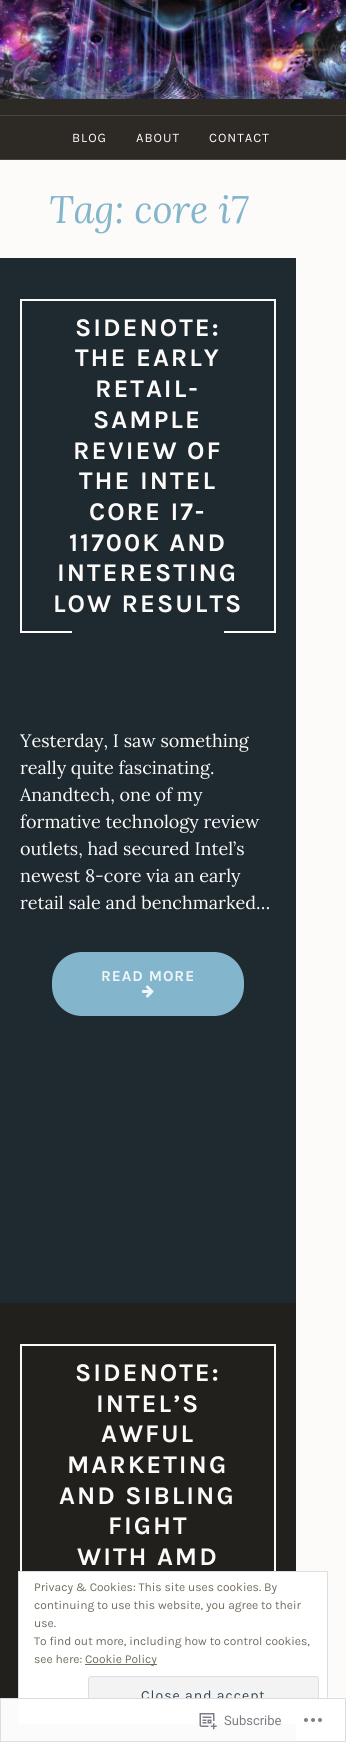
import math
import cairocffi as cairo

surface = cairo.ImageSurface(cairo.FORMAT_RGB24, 346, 1742)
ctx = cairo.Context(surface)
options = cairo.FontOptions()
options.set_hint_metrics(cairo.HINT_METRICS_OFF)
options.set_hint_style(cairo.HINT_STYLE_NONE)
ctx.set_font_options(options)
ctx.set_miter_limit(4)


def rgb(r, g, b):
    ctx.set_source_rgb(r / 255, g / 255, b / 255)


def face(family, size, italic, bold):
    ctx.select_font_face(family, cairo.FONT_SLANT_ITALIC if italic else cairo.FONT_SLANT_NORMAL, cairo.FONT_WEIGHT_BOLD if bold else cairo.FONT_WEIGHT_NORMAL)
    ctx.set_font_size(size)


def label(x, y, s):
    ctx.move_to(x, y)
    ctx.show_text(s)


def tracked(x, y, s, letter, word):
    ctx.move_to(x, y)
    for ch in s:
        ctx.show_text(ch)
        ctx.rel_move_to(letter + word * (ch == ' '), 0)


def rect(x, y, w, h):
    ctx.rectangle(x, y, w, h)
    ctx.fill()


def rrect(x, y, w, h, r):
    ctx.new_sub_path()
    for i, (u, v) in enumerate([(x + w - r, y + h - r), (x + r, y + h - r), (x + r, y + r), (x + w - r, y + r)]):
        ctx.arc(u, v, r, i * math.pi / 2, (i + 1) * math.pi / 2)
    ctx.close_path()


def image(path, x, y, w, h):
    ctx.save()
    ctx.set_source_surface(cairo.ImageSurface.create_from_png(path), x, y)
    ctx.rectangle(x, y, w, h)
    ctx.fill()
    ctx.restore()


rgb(252, 251, 250)
ctx.paint()
rgb(45, 42, 38)
rect(0, 99, 346, 60)
image('image0.png', 0, 0, 346, 99)
rgb(73, 68, 61)
rect(0, 115, 346, 1)
rect(0, 159, 346, 1)
face('Karla', 13, 0, 0)
rgb(252, 251, 249)
tracked(72, 142, 'BLOG', 1, 0)
tracked(136, 142, 'ABOUT', 1, 0)
tracked(209, 142, 'CONTACT', 1, 0)
face('Lora', 38.5, 1, 0)
rgb(131, 182, 204)
label(49, 223, 'Tag: core i7')
rgb(31, 42, 48)
rect(0, 258, 296, 1045)
rgb(252, 251, 249)
rect(20, 299, 256, 2)
rect(274, 299, 2, 334)
rect(20, 299, 2, 334)
face('Karla', 25.5, 0, 1)
tracked(75, 336, 'SIDENOTE:', 2, 0)
tracked(75, 366, 'THE EARLY', 2, 0)
tracked(95, 397, 'RETAIL-', 2, 0)
tracked(93, 428, 'SAMPLE', 2, 0)
tracked(73, 459, 'REVIEW OF', 2, 0)
tracked(79, 489, 'THE INTEL', 2, 0)
tracked(89, 520, 'CORE I7-', 2, 0)
tracked(69, 551, '11700K AND', 2, 0)
tracked(57, 581, 'INTERESTING', 2, 0)
tracked(53, 612, 'LOW RESULTS', 2, 0)
rect(22, 631, 50, 2)
rect(224, 631, 50, 2)
face('Lora', 18, 0, 0)
label(20, 747, 'Yesterday, I saw something')
label(20, 774, 'really quite fascinating.')
label(20, 801, 'Anandtech, one of my')
label(20, 828, 'formative technology review')
label(20, 855, 'outlets, had secured Intel’s')
label(20, 882, 'newest 8-core via an early')
label(20, 909, 'retail sale and benchmarked…')
rgb(131, 182, 204)
rrect(52, 952, 192, 64, 30)
ctx.fill()
face('Karla', 15.25, 0, 1)
rgb(239, 246, 249)
tracked(101, 981, 'READ MORE', 1, 0)
image('image1.png', 142, 985, 12, 13)
rgb(34, 32, 29)
rect(0, 1303, 296, 439)
rgb(252, 251, 249)
rect(20, 1344, 256, 2)
rect(274, 1344, 2, 227)
rect(20, 1344, 2, 227)
face('Karla', 25.5, 0, 1)
tracked(75, 1381, 'SIDENOTE:', 2, 0)
tracked(96, 1412, 'INTEL’S', 2, 0)
tracked(101, 1442, 'AWFUL', 2, 0)
tracked(67, 1473, 'MARKETING', 2, 0)
tracked(59, 1504, 'AND SIBLING', 2, 0)
tracked(108, 1534, 'FIGHT', 2, 0)
tracked(77, 1565, 'WITH AMD', 2, 0)
rgb(255, 255, 255)
ctx.rectangle(18.5, 1571.5, 309, 152)
ctx.fill_preserve()
rgb(222, 222, 222)
ctx.set_line_width(1)
ctx.stroke()
face('Karla', 12, 0, 0)
rgb(114, 107, 96)
label(34, 1591, 'Privacy & Cookies: This site uses cookies. By')
label(34, 1609, 'continuing to use this website, you agree to their')
label(34, 1627, 'use.')
label(34, 1645, 'To find out more, including how to control cookies,')
label(34, 1663, 'see here:')
rect(85, 1664, 72, 1)
label(85, 1663, 'Cookie Policy')
rgb(243, 243, 243)
rrect(88.5, 1676.5, 230, 38, 2.5)
ctx.fill_preserve()
rgb(222, 222, 222)
ctx.stroke()
face('Karla', 14, 0, 0)
rgb(46, 68, 83)
tracked(141, 1700, 'Close and accept', 1, 0)
ctx.set_source_rgba(1, 1, 1, 0.98)
rect(0, 1698, 346, 44)
ctx.rectangle(0.5, 1698.5, 345, 43)
ctx.set_source_rgba(0.863, 0.863, 0.871, 0.98)
ctx.stroke()
image('image2.png', 199, 1713, 18, 17)
face('Roboto', 13, 0, 0)
rgb(123, 127, 132)
label(224, 1725, 'Subscribe')
image('image3.png', 304, 1718, 18, 4)
surface.write_to_png('render.png')
